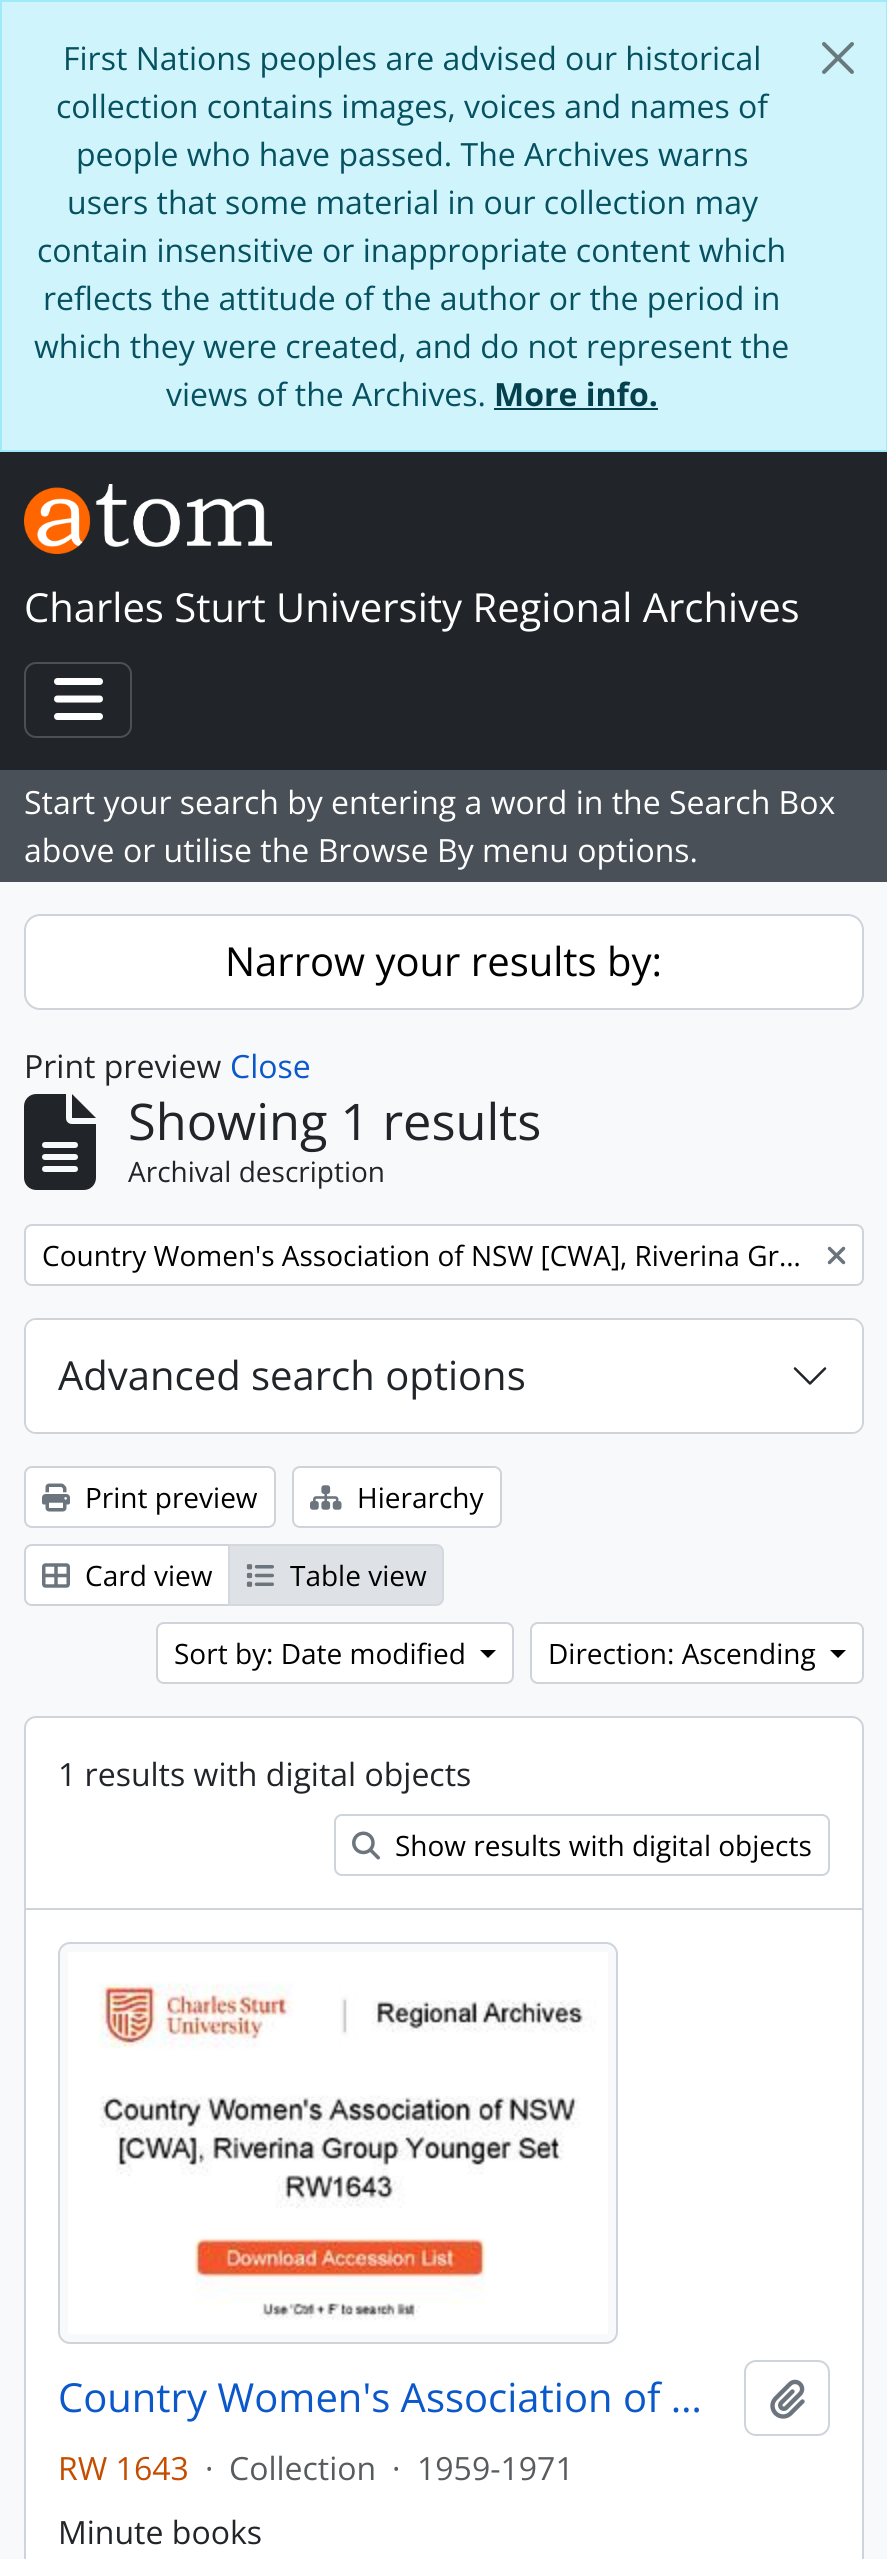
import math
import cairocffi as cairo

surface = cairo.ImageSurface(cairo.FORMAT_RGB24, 887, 2559)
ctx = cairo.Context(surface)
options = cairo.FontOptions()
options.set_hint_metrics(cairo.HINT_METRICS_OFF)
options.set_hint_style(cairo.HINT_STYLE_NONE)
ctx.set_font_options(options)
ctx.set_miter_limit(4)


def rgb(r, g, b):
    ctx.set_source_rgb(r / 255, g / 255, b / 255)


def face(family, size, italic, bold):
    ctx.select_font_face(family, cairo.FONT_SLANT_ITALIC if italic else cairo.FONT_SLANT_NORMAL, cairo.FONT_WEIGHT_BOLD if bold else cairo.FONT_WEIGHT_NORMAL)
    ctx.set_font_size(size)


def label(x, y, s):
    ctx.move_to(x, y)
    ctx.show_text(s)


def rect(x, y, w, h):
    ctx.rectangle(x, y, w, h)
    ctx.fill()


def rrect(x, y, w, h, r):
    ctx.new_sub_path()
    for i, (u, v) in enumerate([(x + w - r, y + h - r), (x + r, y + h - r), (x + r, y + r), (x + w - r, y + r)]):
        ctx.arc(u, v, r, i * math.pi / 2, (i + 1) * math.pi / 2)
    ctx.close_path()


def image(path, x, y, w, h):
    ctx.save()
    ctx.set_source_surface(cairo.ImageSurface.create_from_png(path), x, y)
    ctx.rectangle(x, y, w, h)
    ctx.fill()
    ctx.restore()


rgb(248, 249, 250)
ctx.paint()
rgb(207, 244, 252)
ctx.rectangle(1, 1, 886, 450)
ctx.fill_preserve()
rgb(158, 234, 249)
ctx.stroke()
face('Open Sans', 32, 0, 0)
rgb(5, 81, 96)
label(63, 70, 'First Nations peoples are advised our historical')
label(56, 118, 'collection contains images, voices and names of')
label(76, 166, 'people who have passed. The Archives warns')
label(67, 214, 'users that some material in our collection may')
label(37, 262, 'contain insensitive or inappropriate content which')
label(43, 310, 'reflects the attitude of the author or the period in')
label(34, 358, 'which they were created, and do not represent the')
label(166, 406, 'views of the Archives.')
face('Open Sans', 32, 0, 1)
rgb(4, 65, 77)
label(494, 406, 'More info.')
rect(494, 408, 164, 2)
image('image0.png', 822, 42, 32, 32)
rgb(33, 37, 41)
rect(0, 452, 887, 318)
image('image1.png', 24, 484, 248, 70)
face('Open Sans', 40, 0, 0)
rgb(255, 255, 255)
label(24, 622, 'Charles Sturt University Regional Archives')
rrect(25, 663, 106, 74, 11)
rgb(73, 80, 87)
ctx.stroke()
image('image2.png', 54, 678, 49, 42)
rect(0, 770, 887, 112)
face('Open Sans', 32, 0, 0)
rgb(255, 255, 255)
label(24, 814, 'Start your search by entering a word in the Search Box')
label(24, 862, 'above or utilise the Browse By menu options.')
rrect(25, 915, 838, 94, 15)
ctx.fill_preserve()
rgb(206, 212, 218)
ctx.stroke()
face('Open Sans', 40, 0, 0)
rgb(0, 0, 0)
label(225, 976, 'Narrow your results by:')
face('Open Sans', 32, 0, 0)
rgb(33, 37, 41)
label(24, 1078, 'Print preview')
rgb(10, 88, 202)
label(230, 1078, 'Close')
image('image3.png', 24, 1094, 72, 96)
face('Open Sans', 50.5, 0, 0)
rgb(33, 37, 41)
label(128, 1140, 'Showing 1 results')
face('Open Sans', 28, 0, 0)
label(128, 1182, 'Archival description')
rgb(255, 255, 255)
rrect(25, 1225, 838, 60, 7)
ctx.fill_preserve()
rgb(206, 212, 218)
ctx.stroke()
rgb(0, 0, 0)
label(42, 1266, 'Country Women\'s Association of NSW [CWA], Riverina Gr…')
image('image4.png', 827, 1246, 19, 19)
rrect(25, 1319, 838, 114, 11)
rgb(206, 212, 218)
ctx.stroke()
rgb(255, 255, 255)
rrect(26, 1320, 836, 112, 10)
ctx.fill()
face('Open Sans', 40, 0, 0)
rgb(33, 37, 41)
label(58, 1390, 'Advanced search options')
ctx.new_path()
ctx.move_to(795, 1368.5)
ctx.line_to(810, 1383.5)
ctx.line_to(825, 1368.5)
ctx.set_line_width(2.5)
ctx.set_line_cap(cairo.LINE_CAP_ROUND)
ctx.set_line_join(cairo.LINE_JOIN_ROUND)
ctx.stroke()
rgb(255, 255, 255)
rrect(25, 1467, 250, 60, 7)
ctx.fill_preserve()
rgb(206, 212, 218)
ctx.set_line_width(2)
ctx.set_line_cap(cairo.LINE_CAP_BUTT)
ctx.set_line_join(cairo.LINE_JOIN_MITER)
ctx.stroke()
image('image5.png', 42, 1483, 28, 29)
face('Open Sans', 28, 0, 0)
rgb(0, 0, 0)
label(85, 1508, 'Print preview')
rgb(255, 255, 255)
rrect(293, 1467, 208, 60, 7)
ctx.fill_preserve()
rgb(206, 212, 218)
ctx.stroke()
image('image6.png', 310, 1485, 32, 25)
rgb(0, 0, 0)
label(357, 1508, 'Hierarchy')
rgb(255, 255, 255)
ctx.new_path()
ctx.move_to(32, 1545)
ctx.line_to(229, 1545)
ctx.line_to(229, 1605)
ctx.line_to(32, 1605)
ctx.curve_to(28, 1605, 25, 1602, 25, 1598)
ctx.line_to(25, 1552)
ctx.curve_to(25, 1548, 28, 1545, 32, 1545)
ctx.close_path()
ctx.fill_preserve()
rgb(206, 212, 218)
ctx.stroke()
image('image7.png', 42, 1563, 28, 25)
rgb(0, 0, 0)
label(85, 1586, 'Card view')
rgb(222, 226, 230)
ctx.new_path()
ctx.move_to(229, 1545)
ctx.line_to(436, 1545)
ctx.curve_to(440, 1545, 443, 1548, 443, 1552)
ctx.line_to(443, 1598)
ctx.curve_to(443, 1602, 440, 1605, 436, 1605)
ctx.line_to(229, 1605)
ctx.close_path()
ctx.fill_preserve()
rgb(211, 216, 222)
ctx.stroke()
image('image8.png', 246, 1564, 28, 23)
rgb(0, 0, 0)
label(290, 1586, 'Table view')
rgb(255, 255, 255)
rrect(157, 1623, 356, 60, 7)
ctx.fill_preserve()
rgb(206, 212, 218)
ctx.stroke()
rgb(0, 0, 0)
label(174, 1664, 'Sort by: Date modified')
ctx.new_path()
ctx.move_to(480, 1650)
ctx.line_to(496, 1650)
ctx.line_to(488, 1658)
ctx.close_path()
ctx.fill()
rgb(255, 255, 255)
rrect(531, 1623, 332, 60, 7)
ctx.fill_preserve()
rgb(206, 212, 218)
ctx.stroke()
rgb(0, 0, 0)
label(548, 1664, 'Direction: Ascending')
ctx.new_path()
ctx.move_to(830, 1650)
ctx.line_to(846, 1650)
ctx.line_to(838, 1658)
ctx.close_path()
ctx.fill()
rgb(255, 255, 255)
rrect(25, 1717, 838, 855, 11)
ctx.fill_preserve()
rgb(206, 212, 218)
ctx.stroke()
rect(26, 1908, 836, 2)
face('Open Sans', 32, 0, 0)
rgb(33, 37, 41)
label(58, 1786, '1 results with digital objects')
rrect(335, 1815, 494, 60, 7)
rgb(206, 212, 218)
ctx.stroke()
image('image9.png', 352, 1831, 28, 29)
face('Open Sans', 28, 0, 0)
rgb(0, 0, 0)
label(395, 1856, 'Show results with digital objects')
rgb(248, 249, 250)
rrect(59, 1943, 558, 400, 11)
ctx.fill_preserve()
rgb(206, 212, 218)
ctx.stroke()
image('image10.png', 68, 1952, 540, 382)
face('Open Sans', 40, 0, 0)
rgb(10, 88, 202)
label(58, 2412, 'Country Women\'s Association of …')
rrect(745, 2361, 84, 74, 11)
rgb(206, 212, 218)
ctx.stroke()
image('image11.png', 770, 2379, 35, 40)
face('Open Sans', 32, 0, 0)
rgb(196, 78, 0)
label(58, 2480, 'RW 1643')
rgb(89, 92, 95)
label(205, 2480, '·')
label(229, 2480, 'Collection')
label(392, 2480, '·')
label(417, 2480, '1959-1971')
rgb(33, 37, 41)
label(58, 2544, 'Minute books')
surface.write_to_png('render.png')
